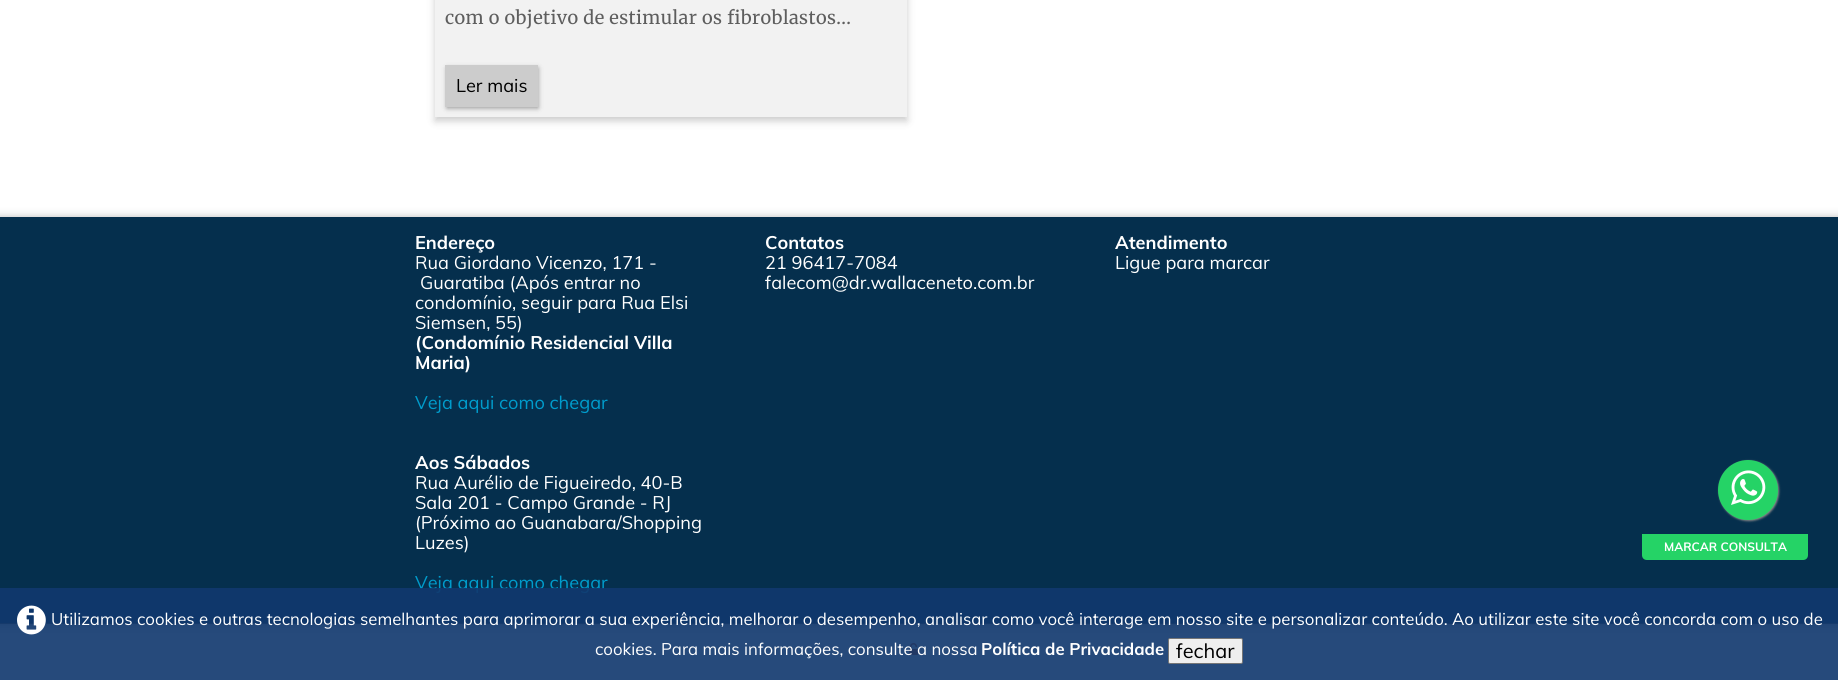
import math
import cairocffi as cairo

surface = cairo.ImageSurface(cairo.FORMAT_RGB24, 1838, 680)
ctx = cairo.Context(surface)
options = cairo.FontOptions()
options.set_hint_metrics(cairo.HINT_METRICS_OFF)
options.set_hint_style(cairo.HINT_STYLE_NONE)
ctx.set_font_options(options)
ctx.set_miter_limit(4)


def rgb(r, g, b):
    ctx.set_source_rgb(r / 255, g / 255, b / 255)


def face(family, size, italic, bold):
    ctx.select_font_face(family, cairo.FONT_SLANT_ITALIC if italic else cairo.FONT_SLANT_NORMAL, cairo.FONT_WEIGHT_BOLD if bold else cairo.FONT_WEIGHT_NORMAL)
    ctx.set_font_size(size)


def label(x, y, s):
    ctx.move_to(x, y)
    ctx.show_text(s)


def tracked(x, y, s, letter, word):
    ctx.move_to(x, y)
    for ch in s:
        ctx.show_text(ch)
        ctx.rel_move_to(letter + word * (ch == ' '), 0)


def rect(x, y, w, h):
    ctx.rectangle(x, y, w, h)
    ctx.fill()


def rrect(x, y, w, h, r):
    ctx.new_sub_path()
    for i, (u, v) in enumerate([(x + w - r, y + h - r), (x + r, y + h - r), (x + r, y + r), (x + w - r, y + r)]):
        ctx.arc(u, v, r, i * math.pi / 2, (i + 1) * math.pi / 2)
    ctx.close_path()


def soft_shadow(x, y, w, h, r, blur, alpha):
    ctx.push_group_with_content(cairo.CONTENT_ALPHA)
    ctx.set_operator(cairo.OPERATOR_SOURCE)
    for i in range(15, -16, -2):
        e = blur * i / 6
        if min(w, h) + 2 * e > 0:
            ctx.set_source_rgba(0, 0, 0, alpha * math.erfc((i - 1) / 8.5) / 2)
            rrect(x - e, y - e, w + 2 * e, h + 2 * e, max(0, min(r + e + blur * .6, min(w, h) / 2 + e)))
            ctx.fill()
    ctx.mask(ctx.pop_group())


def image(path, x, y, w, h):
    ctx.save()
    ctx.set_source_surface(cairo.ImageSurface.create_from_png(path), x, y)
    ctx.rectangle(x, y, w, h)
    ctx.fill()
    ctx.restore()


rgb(255, 255, 255)
ctx.paint()
rgb(0, 0, 0)
soft_shadow(435, -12, 472, 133, 0, 4, 0.2)
rgb(242, 242, 242)
rect(435, 0, 472, 117)
face('Merriweather', 18.2, 0, 0)
rgb(94, 94, 94)
tracked(445, 24, 'com o objetivo de estimular os fibroblastos...', 0.4, 0)
rgb(0, 0, 0)
soft_shadow(447, 68, 91, 40, 0, 2.5, 0.4)
rgb(204, 204, 204)
rect(445, 65, 93, 42)
face('Muli', 18.2, 0, 0)
rgb(0, 0, 0)
label(456, 92, 'Ler mais')
rgb(120, 120, 120)
soft_shadow(-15, 219, 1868, 406, 0, 5, 0.75)
rgb(5, 47, 77)
rect(0, 217, 1838, 406)
face('Muli', 18.2, 0, 1)
rgb(255, 255, 255)
label(415, 249, 'Endereço')
face('Muli', 18.2, 0, 0)
label(415, 269, 'Rua Giordano Vicenzo, 171 -')
label(420, 289, 'Guaratiba (Após entrar no')
label(415, 309, 'condomínio, seguir para Rua Elsi')
label(415, 329, 'Siemsen, 55)')
face('Muli', 18.2, 0, 1)
label(415, 349, '(Condomínio Residencial Villa')
label(415, 369, 'Maria)')
face('Muli', 18.2, 0, 0)
rgb(0, 156, 204)
label(415, 409, 'Veja aqui como chegar')
face('Muli', 18.2, 0, 1)
rgb(255, 255, 255)
label(415, 469, 'Aos Sábados')
face('Muli', 18.2, 0, 0)
label(415, 489, 'Rua Aurélio de Figueiredo, 40-B')
label(415, 509, 'Sala 201 - Campo Grande - RJ')
label(415, 529, '(Próximo ao Guanabara/Shopping')
label(415, 549, 'Luzes)')
rgb(0, 156, 204)
label(415, 589, 'Veja aqui como chegar')
face('Muli', 18.2, 0, 1)
rgb(255, 255, 255)
label(765, 249, 'Contatos')
face('Muli', 18.2, 0, 0)
label(765, 269, '21 96417-7084')
label(765, 289, 'falecom@dr.wallaceneto.com.br')
face('Muli', 18.2, 0, 1)
label(1115, 249, 'Atendimento')
face('Muli', 18.2, 0, 0)
label(1115, 269, 'Ligue para marcar')
rgb(136, 136, 136)
soft_shadow(1719, 461, 60, 60, 30, 1, 1)
rgb(37, 211, 102)
ctx.arc(1748, 490, 30, 0, 2 * math.pi)
ctx.fill()
image('image0.png', 1731, 470, 35, 35)
ctx.new_path()
ctx.move_to(1642, 534)
ctx.line_to(1808, 534)
ctx.line_to(1808, 555)
ctx.curve_to(1808, 558, 1806, 560, 1803, 560)
ctx.line_to(1647, 560)
ctx.curve_to(1644, 560, 1642, 558, 1642, 555)
ctx.close_path()
ctx.fill()
face('Muli', 12, 0, 1)
rgb(255, 255, 255)
label(1664, 551, 'MARCAR CONSULTA')
rgb(77, 77, 77)
rect(0, 623, 1838, 1)
image('image1.png', 909, 643, 9, 12)
ctx.set_source_rgba(0.067, 0.22, 0.431, 0.91)
rect(0, 588, 1838, 92)
image('image2.png', 17, 605, 29, 30)
face('Muli', 16.8, 0, 0)
rgb(255, 255, 255)
label(51, 625, 'Utilizamos cookies e outras tecnologias semelhantes para aprimorar a sua experiência, melhorar o desempenho, analisar como você interage em nosso site e personalizar conteúdo. Ao utilizar este site você concorda com o uso de')
label(595, 655, 'cookies. Para mais informações, consulte a nossa')
face('Muli', 16.8, 0, 1)
label(981, 655, 'Política de Privacidade')
rgb(239, 239, 239)
rrect(1168.5, 638.5, 74, 25, 1.5)
ctx.fill_preserve()
rgb(118, 118, 118)
ctx.set_line_width(1)
ctx.stroke()
face('Muli', 20, 0, 0)
rgb(0, 0, 0)
label(1176, 658, 'fechar')
surface.write_to_png('render.png')
